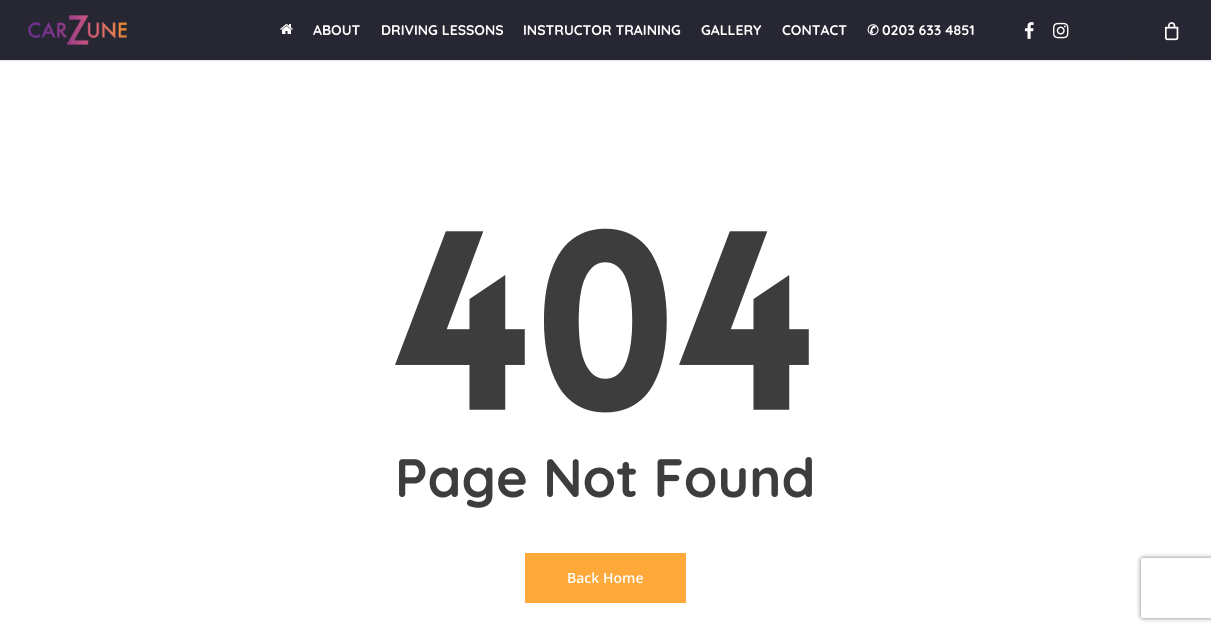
import math
import cairocffi as cairo

surface = cairo.ImageSurface(cairo.FORMAT_RGB24, 1211, 632)
ctx = cairo.Context(surface)
options = cairo.FontOptions()
options.set_hint_metrics(cairo.HINT_METRICS_OFF)
options.set_hint_style(cairo.HINT_STYLE_NONE)
ctx.set_font_options(options)
ctx.set_miter_limit(4)


def rgb(r, g, b):
    ctx.set_source_rgb(r / 255, g / 255, b / 255)


def face(family, size, italic, bold):
    ctx.select_font_face(family, cairo.FONT_SLANT_ITALIC if italic else cairo.FONT_SLANT_NORMAL, cairo.FONT_WEIGHT_BOLD if bold else cairo.FONT_WEIGHT_NORMAL)
    ctx.set_font_size(size)


def label(x, y, s):
    ctx.move_to(x, y)
    ctx.show_text(s)


def rect(x, y, w, h):
    ctx.rectangle(x, y, w, h)
    ctx.fill()


def rrect(x, y, w, h, r):
    ctx.new_sub_path()
    for i, (u, v) in enumerate([(x + w - r, y + h - r), (x + r, y + h - r), (x + r, y + r), (x + w - r, y + r)]):
        ctx.arc(u, v, r, i * math.pi / 2, (i + 1) * math.pi / 2)
    ctx.close_path()


def soft_shadow(x, y, w, h, r, blur, alpha):
    ctx.push_group_with_content(cairo.CONTENT_ALPHA)
    ctx.set_operator(cairo.OPERATOR_SOURCE)
    for i in range(15, -16, -2):
        e = blur * i / 6
        if min(w, h) + 2 * e > 0:
            ctx.set_source_rgba(0, 0, 0, alpha * math.erfc((i - 1) / 8.5) / 2)
            rrect(x - e, y - e, w + 2 * e, h + 2 * e, max(0, min(r + e + blur * .6, min(w, h) / 2 + e)))
            ctx.fill()
    ctx.mask(ctx.pop_group())


def image(path, x, y, w, h):
    ctx.save()
    ctx.set_source_surface(cairo.ImageSurface.create_from_png(path), x, y)
    ctx.rectangle(x, y, w, h)
    ctx.fill()
    ctx.restore()


rgb(255, 255, 255)
ctx.paint()
rgb(39, 39, 51)
rect(0, 0, 1211, 60)
ctx.save()
ctx.rectangle(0, 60, 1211, 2)
ctx.clip()
rgb(0, 0, 0)
soft_shadow(0, 0, 1211, 60, 0, 1.5, 0.22)
ctx.restore()
image('image0.png', 28, 15, 99, 30)
image('image1.png', 280, 24, 13, 10)
face('Quicksand', 14, 0, 1)
rgb(255, 255, 255)
label(313, 35, 'ABOUT')
label(381, 35, 'DRIVING LESSONS')
label(523, 35, 'INSTRUCTOR TRAINING')
label(701, 35, 'GALLERY')
label(782, 35, 'CONTACT')
face('DejaVu Sans', 14, 0, 1)
label(867, 35, '✆')
face('Quicksand', 14, 0, 1)
label(882, 35, '0203 633 4851')
image('image2.png', 1024, 22, 10, 17)
image('image3.png', 1053, 22, 16, 17)
rgb(36, 36, 47)
rect(1131, 0, 1, 60)
image('image4.png', 1165, 22, 14, 19)
face('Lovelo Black', 250, 0, 0)
rgb(61, 61, 61)
label(396, 410, '404')
face('Quicksand', 54, 0, 1)
label(395, 497, 'Page Not Found')
rgb(255, 169, 58)
rect(525, 553, 161, 50)
face('Open Sans SemiBold', 14, 0, 0)
rgb(255, 255, 255)
label(567, 583, 'Back Home')
ctx.save()
ctx.set_fill_rule(cairo.FILL_RULE_EVEN_ODD)
ctx.new_path()
ctx.move_to(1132, 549)
ctx.line_to(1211, 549)
ctx.line_to(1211, 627)
ctx.line_to(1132, 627)
ctx.close_path()
ctx.move_to(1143, 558)
ctx.line_to(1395, 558)
ctx.curve_to(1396, 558, 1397, 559, 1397, 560)
ctx.line_to(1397, 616)
ctx.curve_to(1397, 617, 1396, 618, 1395, 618)
ctx.line_to(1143, 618)
ctx.curve_to(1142, 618, 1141, 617, 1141, 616)
ctx.line_to(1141, 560)
ctx.curve_to(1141, 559, 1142, 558, 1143, 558)
ctx.close_path()
ctx.clip()
rgb(128, 128, 128)
soft_shadow(1141, 558, 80, 60, 2, 2.5, 1)
ctx.restore()
surface.write_to_png('render.png')
